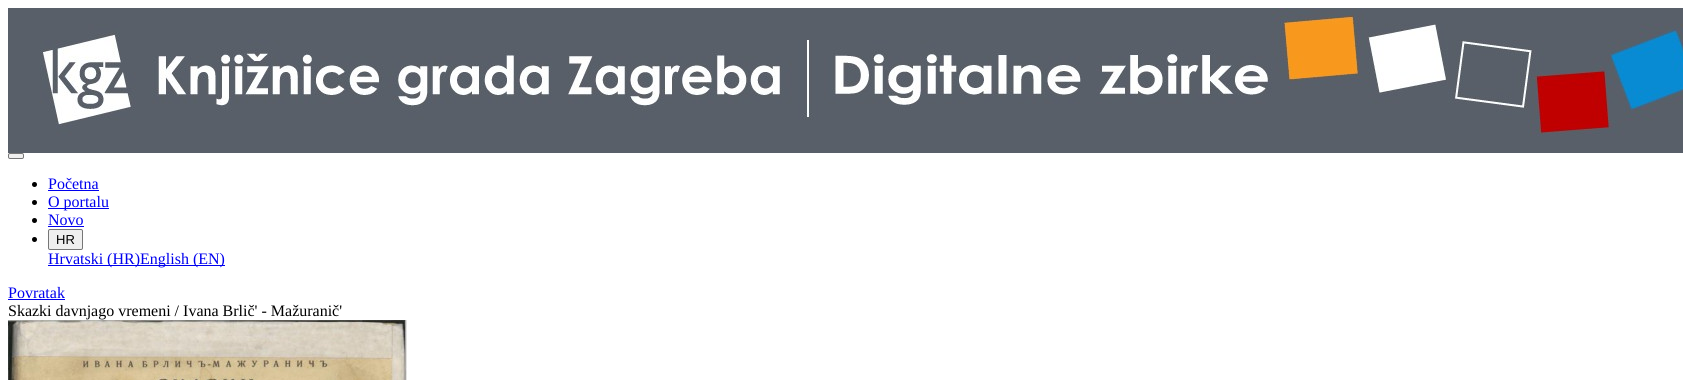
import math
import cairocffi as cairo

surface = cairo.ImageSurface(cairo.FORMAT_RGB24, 1683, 380)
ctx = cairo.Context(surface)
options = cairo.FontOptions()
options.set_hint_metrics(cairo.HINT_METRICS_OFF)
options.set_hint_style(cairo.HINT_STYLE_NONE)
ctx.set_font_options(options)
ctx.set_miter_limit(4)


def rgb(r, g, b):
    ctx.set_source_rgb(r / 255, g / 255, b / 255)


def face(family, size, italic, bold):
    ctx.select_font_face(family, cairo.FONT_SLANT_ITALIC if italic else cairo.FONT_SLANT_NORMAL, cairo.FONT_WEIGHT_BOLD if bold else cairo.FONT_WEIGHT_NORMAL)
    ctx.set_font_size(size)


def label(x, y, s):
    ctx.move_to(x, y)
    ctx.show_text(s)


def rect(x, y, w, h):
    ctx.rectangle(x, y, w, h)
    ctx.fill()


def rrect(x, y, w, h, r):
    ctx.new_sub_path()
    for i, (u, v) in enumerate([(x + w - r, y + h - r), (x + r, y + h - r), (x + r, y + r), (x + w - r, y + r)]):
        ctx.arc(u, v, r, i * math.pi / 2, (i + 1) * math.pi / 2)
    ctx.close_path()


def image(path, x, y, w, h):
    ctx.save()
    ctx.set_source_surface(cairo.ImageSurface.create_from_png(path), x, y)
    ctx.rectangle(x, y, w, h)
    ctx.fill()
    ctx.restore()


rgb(255, 255, 255)
ctx.paint()
image('image0.png', 8, 8, 1675, 145)
rgb(239, 239, 239)
rrect(8.5, 153.5, 15, 5, 1.5)
ctx.fill_preserve()
rgb(118, 118, 118)
ctx.set_line_width(1)
ctx.stroke()
rgb(0, 0, 0)
ctx.arc(34.5, 184.5, 2.5, 0, 2 * math.pi)
ctx.fill()
face('Liberation Serif', 16, 0, 0)
rgb(0, 0, 238)
label(48, 189, 'Početna')
rect(48, 190, 51, 1)
rgb(0, 0, 0)
ctx.new_path()
ctx.arc(34.5, 202.5, 2.5, 0, 2 * math.pi)
ctx.fill()
rgb(0, 0, 238)
rect(48, 208, 61, 1)
label(48, 207, 'O portalu')
rgb(0, 0, 0)
ctx.new_path()
ctx.arc(34.5, 220.5, 2.5, 0, 2 * math.pi)
ctx.fill()
rgb(0, 0, 238)
label(48, 225, 'Novo')
rect(48, 226, 36, 1)
rgb(0, 0, 0)
ctx.new_path()
ctx.arc(34.5, 239.5, 2.5, 0, 2 * math.pi)
ctx.fill()
rgb(239, 239, 239)
rrect(48.5, 229.5, 34, 20, 1.5)
ctx.fill_preserve()
rgb(118, 118, 118)
ctx.stroke()
face('Liberation Sans', 13, 0, 0)
rgb(0, 0, 0)
label(56, 244, 'HR')
rgb(0, 0, 238)
rect(48, 265, 177, 1)
face('Liberation Serif', 16, 0, 0)
label(48, 264, 'Hrvatski (HR)English (EN)')
label(8, 298, 'Povratak')
rect(8, 299, 57, 1)
rgb(0, 0, 0)
label(8, 316, 'Skazki davnjago vremeni / Ivana Brlič\' - Mažuranič\'')
image('image1.png', 8, 320, 399, 60)
surface.write_to_png('render.png')
